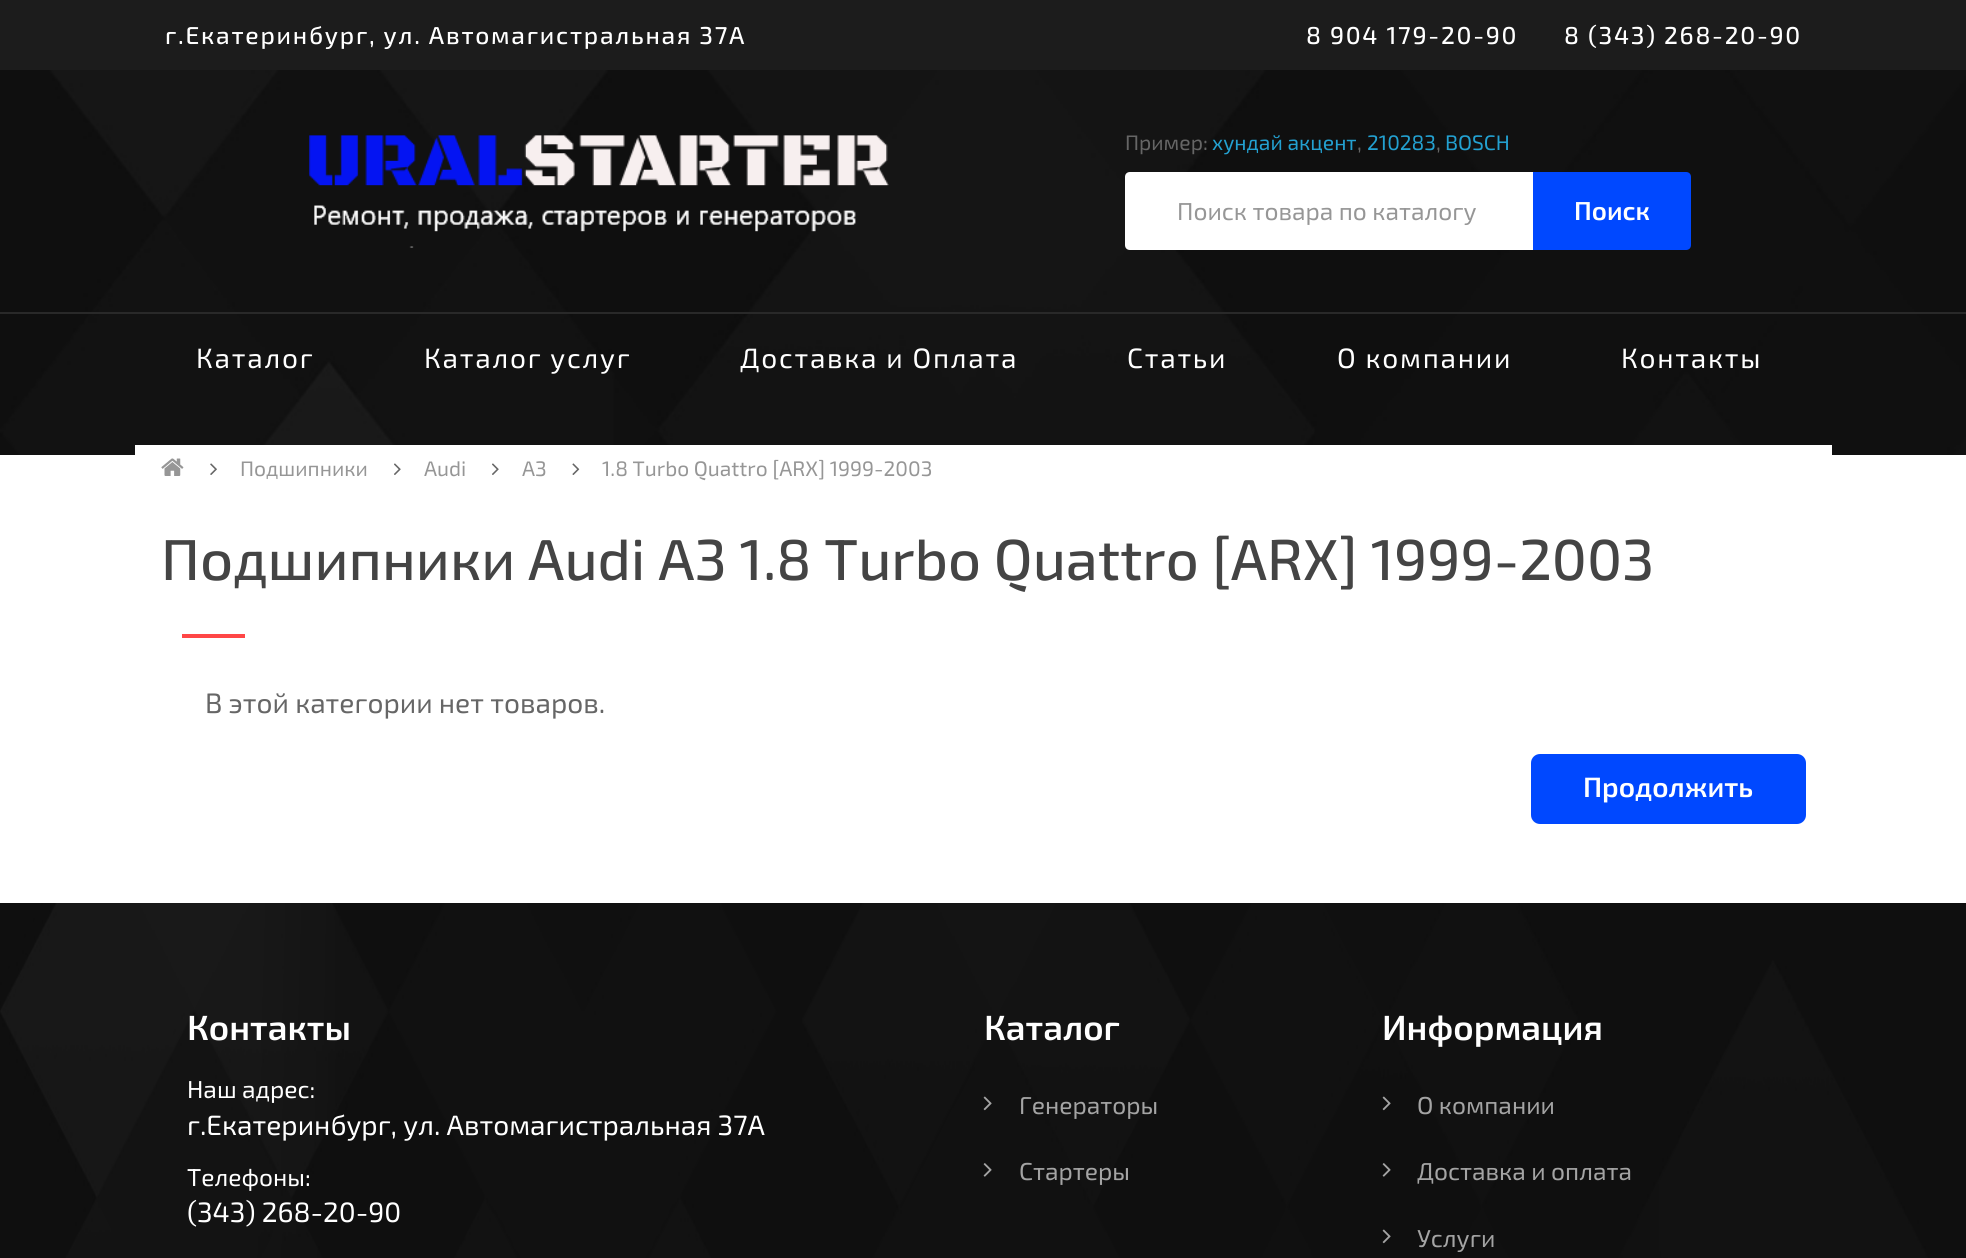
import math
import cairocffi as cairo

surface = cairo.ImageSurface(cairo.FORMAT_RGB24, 1966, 1258)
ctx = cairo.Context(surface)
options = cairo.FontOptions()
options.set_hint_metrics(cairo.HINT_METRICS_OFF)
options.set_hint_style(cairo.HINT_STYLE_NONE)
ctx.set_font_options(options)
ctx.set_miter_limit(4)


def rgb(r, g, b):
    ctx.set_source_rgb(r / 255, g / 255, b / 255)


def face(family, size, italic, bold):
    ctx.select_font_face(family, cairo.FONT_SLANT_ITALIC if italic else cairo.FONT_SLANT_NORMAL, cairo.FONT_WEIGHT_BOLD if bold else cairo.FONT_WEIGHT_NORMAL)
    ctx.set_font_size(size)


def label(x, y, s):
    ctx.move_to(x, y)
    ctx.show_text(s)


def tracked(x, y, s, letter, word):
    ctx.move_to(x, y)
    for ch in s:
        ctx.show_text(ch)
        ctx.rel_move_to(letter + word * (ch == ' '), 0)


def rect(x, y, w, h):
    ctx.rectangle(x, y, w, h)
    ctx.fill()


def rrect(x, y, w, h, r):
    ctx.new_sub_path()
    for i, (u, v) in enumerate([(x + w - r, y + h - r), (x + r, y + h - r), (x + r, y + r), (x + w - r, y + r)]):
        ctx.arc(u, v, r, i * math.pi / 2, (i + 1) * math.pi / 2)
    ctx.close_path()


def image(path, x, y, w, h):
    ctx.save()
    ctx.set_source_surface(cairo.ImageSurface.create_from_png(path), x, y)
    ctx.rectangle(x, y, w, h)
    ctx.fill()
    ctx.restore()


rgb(255, 255, 255)
ctx.paint()
rgb(28, 28, 28)
rect(0, 0, 1966, 70)
face('Exo 2 Medium', 24.5, 0, 0)
rgb(255, 255, 255)
tracked(165, 44, 'г.Екатеринбург, ул. Автомагистральная 37А', 1.75, 0)
tracked(1306, 44, '8 904 179-20-90', 1.75, 0)
tracked(1564, 44, '8 (343) 268-20-90', 1.75, 0)
image('image0.png', 0, 70, 1966, 385)
image('image1.png', 309, 135, 580, 113)
face('Exo 2', 21, 0, 0)
rgb(102, 102, 102)
label(1125, 150, 'Пример:')
rgb(35, 161, 209)
label(1212, 150, 'хундай акцент')
rgb(102, 102, 102)
label(1357, 150, ',')
rgb(35, 161, 209)
label(1367, 150, '210283')
rgb(102, 102, 102)
label(1436, 150, ',')
rgb(35, 161, 209)
label(1445, 150, 'BOSCH')
rgb(255, 255, 255)
ctx.new_path()
ctx.move_to(1130, 172)
ctx.line_to(1535, 172)
ctx.line_to(1535, 250)
ctx.line_to(1130, 250)
ctx.curve_to(1127, 250, 1125, 248, 1125, 245)
ctx.line_to(1125, 177)
ctx.curve_to(1125, 174, 1127, 172, 1130, 172)
ctx.close_path()
ctx.fill()
face('Exo 2', 24.5, 0, 0)
rgb(150, 150, 150)
label(1177, 220, 'Поиск товара по каталогу')
rgb(0, 72, 255)
ctx.new_path()
ctx.move_to(1533, 172)
ctx.line_to(1686, 172)
ctx.curve_to(1689, 172, 1691, 174, 1691, 177)
ctx.line_to(1691, 245)
ctx.curve_to(1691, 248, 1689, 250, 1686, 250)
ctx.line_to(1533, 250)
ctx.close_path()
ctx.fill()
face('Exo 2 SemiBold', 26, 0, 0)
rgb(255, 255, 255)
label(1574, 220, 'Поиск')
rgb(41, 41, 41)
rect(0, 312, 1966, 2)
face('Exo 2', 28, 0, 0)
rgb(255, 255, 255)
tracked(196, 368, 'Каталог', 1.75, 0)
tracked(424, 368, 'Каталог услуг', 1.75, 0)
tracked(740, 368, 'Доставка и Оплата', 1.75, 0)
tracked(1127, 368, 'Статьи', 1.75, 0)
tracked(1337, 368, 'О компании', 1.75, 0)
tracked(1621, 368, 'Контакты', 1.75, 0)
rect(135, 445, 1697, 10)
image('image2.png', 161, 458, 23, 18)
image('image3.png', 210, 463, 7, 12)
face('Exo 2', 21, 0, 0)
rgb(150, 150, 150)
label(240, 476, 'Подшипники')
image('image4.png', 394, 463, 7, 12)
label(424, 476, 'Audi')
image('image4.png', 492, 463, 7, 12)
label(522, 476, 'A3')
image('image5.png', 572, 463, 8, 12)
label(602, 476, '1.8 Turbo Quattro [ARX] 1999-2003')
face('Exo 2 Medium', 57.75, 0, 0)
rgb(68, 68, 68)
label(161, 580, 'Подшипники Audi A3 1.8 Turbo Quattro [ARX] 1999-2003')
rgb(255, 70, 70)
rect(182, 634, 63, 4)
face('Exo 2', 28, 0, 0)
rgb(102, 102, 102)
label(205, 713, 'В этой категории нет товаров.')
rgb(0, 72, 255)
rrect(1531, 754, 275, 70, 9)
ctx.fill()
face('Exo 2 SemiBold', 28, 0, 0)
rgb(255, 255, 255)
label(1583, 797, 'Продолжить')
image('image6.png', 0, 903, 1966, 355)
face('Exo 2 SemiBold', 35, 0, 0)
label(187, 1040, 'Контакты')
face('Exo 2', 24.5, 0, 0)
label(187, 1098, 'Наш адрес:')
face('Exo 2', 28, 0, 0)
label(187, 1135, 'г.Екатеринбург, ул. Автомагистральная 37А')
face('Exo 2', 24.5, 0, 0)
label(187, 1186, 'Телефоны:')
face('Exo 2', 28, 0, 0)
label(187, 1222, '(343) 268-20-90')
face('Exo 2 SemiBold', 35, 0, 0)
label(984, 1040, 'Каталог')
image('image7.png', 983, 1096, 9, 15)
face('Exo 2', 24.5, 0, 0)
rgb(164, 164, 164)
label(1019, 1114, 'Генераторы')
image('image8.png', 983, 1163, 9, 14)
label(1019, 1180, 'Стартеры')
face('Exo 2 SemiBold', 35, 0, 0)
rgb(255, 255, 255)
label(1382, 1040, 'Информация')
image('image9.png', 1382, 1096, 9, 15)
face('Exo 2', 24.5, 0, 0)
rgb(164, 164, 164)
label(1417, 1114, 'О компании')
image('image10.png', 1382, 1163, 9, 14)
label(1417, 1180, 'Доставка и оплата')
image('image9.png', 1382, 1229, 9, 15)
label(1417, 1247, 'Услуги')
surface.write_to_png('render.png')
